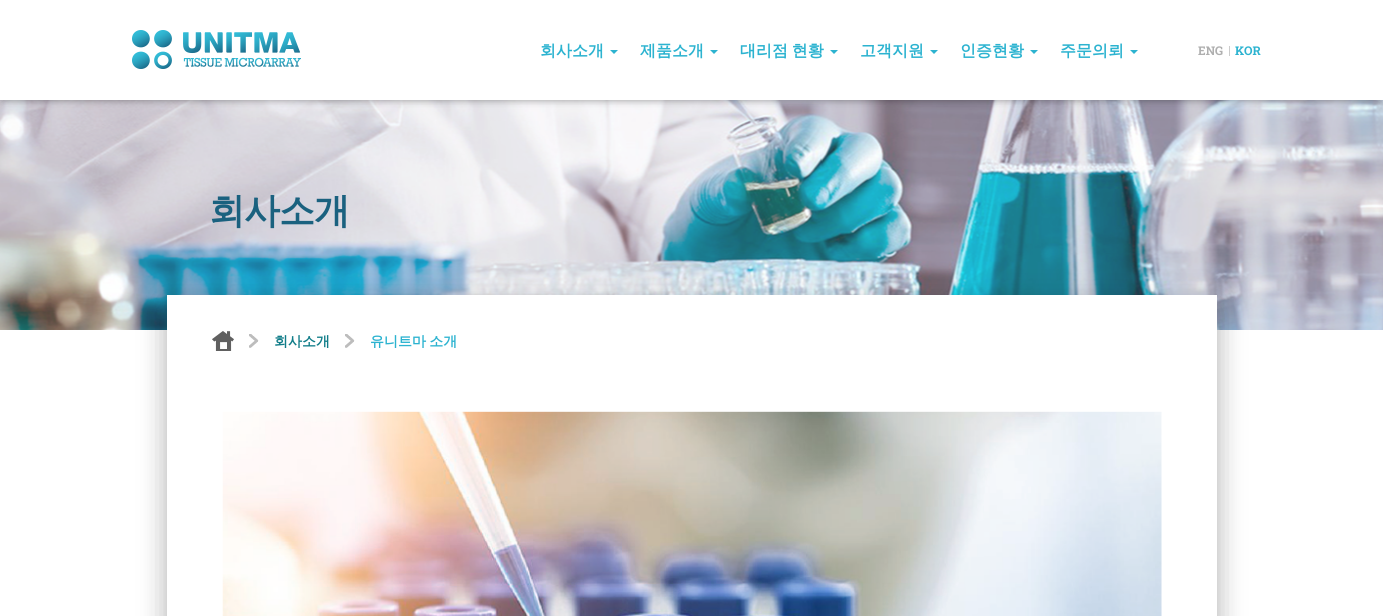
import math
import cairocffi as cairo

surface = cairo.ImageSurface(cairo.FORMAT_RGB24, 1383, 616)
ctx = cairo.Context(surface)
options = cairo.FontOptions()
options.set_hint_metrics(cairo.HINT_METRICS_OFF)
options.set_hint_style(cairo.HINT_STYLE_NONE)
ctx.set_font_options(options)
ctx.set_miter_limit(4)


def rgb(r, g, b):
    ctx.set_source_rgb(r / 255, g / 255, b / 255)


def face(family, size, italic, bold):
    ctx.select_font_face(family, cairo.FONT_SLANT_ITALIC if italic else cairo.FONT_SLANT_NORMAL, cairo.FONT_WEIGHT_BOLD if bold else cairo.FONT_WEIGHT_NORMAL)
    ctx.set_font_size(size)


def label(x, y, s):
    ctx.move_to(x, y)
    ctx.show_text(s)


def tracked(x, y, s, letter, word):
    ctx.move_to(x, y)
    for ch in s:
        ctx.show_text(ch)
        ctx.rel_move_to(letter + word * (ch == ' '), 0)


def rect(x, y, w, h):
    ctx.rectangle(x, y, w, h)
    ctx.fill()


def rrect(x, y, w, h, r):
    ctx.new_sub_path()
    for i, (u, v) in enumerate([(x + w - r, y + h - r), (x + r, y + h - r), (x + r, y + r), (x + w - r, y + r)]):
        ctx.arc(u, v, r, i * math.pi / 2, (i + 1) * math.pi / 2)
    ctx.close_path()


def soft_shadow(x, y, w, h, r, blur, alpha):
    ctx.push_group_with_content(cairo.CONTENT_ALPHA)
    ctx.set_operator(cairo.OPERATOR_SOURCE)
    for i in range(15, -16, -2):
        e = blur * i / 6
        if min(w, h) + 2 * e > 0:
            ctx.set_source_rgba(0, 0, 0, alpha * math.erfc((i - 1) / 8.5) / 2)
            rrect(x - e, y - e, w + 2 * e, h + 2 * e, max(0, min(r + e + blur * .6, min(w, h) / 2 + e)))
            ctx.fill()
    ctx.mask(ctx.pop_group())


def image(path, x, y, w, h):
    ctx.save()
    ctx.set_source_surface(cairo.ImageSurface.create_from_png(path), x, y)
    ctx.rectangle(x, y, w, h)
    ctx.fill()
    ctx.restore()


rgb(255, 255, 255)
ctx.paint()
image('image1.png', 0, 100, 1383, 230)
rgb(0, 0, 0)
soft_shadow(2, 6, 1379, 96, 0, 2.5, 0.1)
soft_shadow(0, 1, 1383, 100, 0, 5, 0.12)
soft_shadow(6, 7, 1371, 88, 0, 5, 0.42)
rgb(255, 255, 255)
rect(0, 0, 1383, 100)
image('image0.png', 132, 30, 169, 39)
face('WenQuanYi Zen Hei', 16, 0, 1)
rgb(44, 179, 208)
label(540, 56, '회사소개')
ctx.new_path()
ctx.move_to(610, 50)
ctx.line_to(618, 50)
ctx.line_to(614, 54)
ctx.close_path()
ctx.fill()
label(640, 56, '제품소개')
ctx.new_path()
ctx.move_to(710, 50)
ctx.line_to(718, 50)
ctx.line_to(714, 54)
ctx.close_path()
ctx.fill()
tracked(740, 56, '대리점 현황', 0, -1)
ctx.new_path()
ctx.move_to(830, 50)
ctx.line_to(838, 50)
ctx.line_to(834, 54)
ctx.close_path()
ctx.fill()
label(860, 56, '고객지원')
ctx.new_path()
ctx.move_to(930, 50)
ctx.line_to(938, 50)
ctx.line_to(934, 54)
ctx.close_path()
ctx.fill()
label(960, 56, '인증현황')
ctx.new_path()
ctx.move_to(1030, 50)
ctx.line_to(1038, 50)
ctx.line_to(1034, 54)
ctx.close_path()
ctx.fill()
label(1060, 56, '주문의뢰')
ctx.new_path()
ctx.move_to(1130, 50)
ctx.line_to(1138, 50)
ctx.line_to(1134, 54)
ctx.close_path()
ctx.fill()
face('Roboto Slab', 12, 0, 1)
rgb(175, 175, 175)
label(1198, 55, 'ENG')
rgb(204, 204, 204)
rect(1229, 46, 1, 10)
rgb(44, 179, 208)
label(1235, 55, 'KOR')
face('WenQuanYi Zen Hei', 36, 0, 1)
rgb(26, 97, 127)
tracked(209, 223, '회사소개', -1, 0)
rgb(0, 0, 0)
soft_shadow(172, 308, 1040, 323, 0, 5, 0.2)
soft_shadow(162, 296, 1060, 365, 0, 15, 0.12)
soft_shadow(165, 309, 1054, 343, 0, 12, 0.14)
rgb(255, 255, 255)
rect(167, 295, 1050, 321)
image('image2.png', 212, 331, 22, 20)
image('image3.png', 249, 334, 10, 14)
face('WenQuanYi Zen Hei', 14, 0, 1)
rgb(17, 125, 137)
label(274, 346, '회사소개')
image('image3.png', 345, 334, 10, 14)
rgb(44, 179, 208)
tracked(370, 346, '유니트마 소개', 0, -1)
image('image4.png', 222, 411, 940, 205)
surface.write_to_png('render.png')
